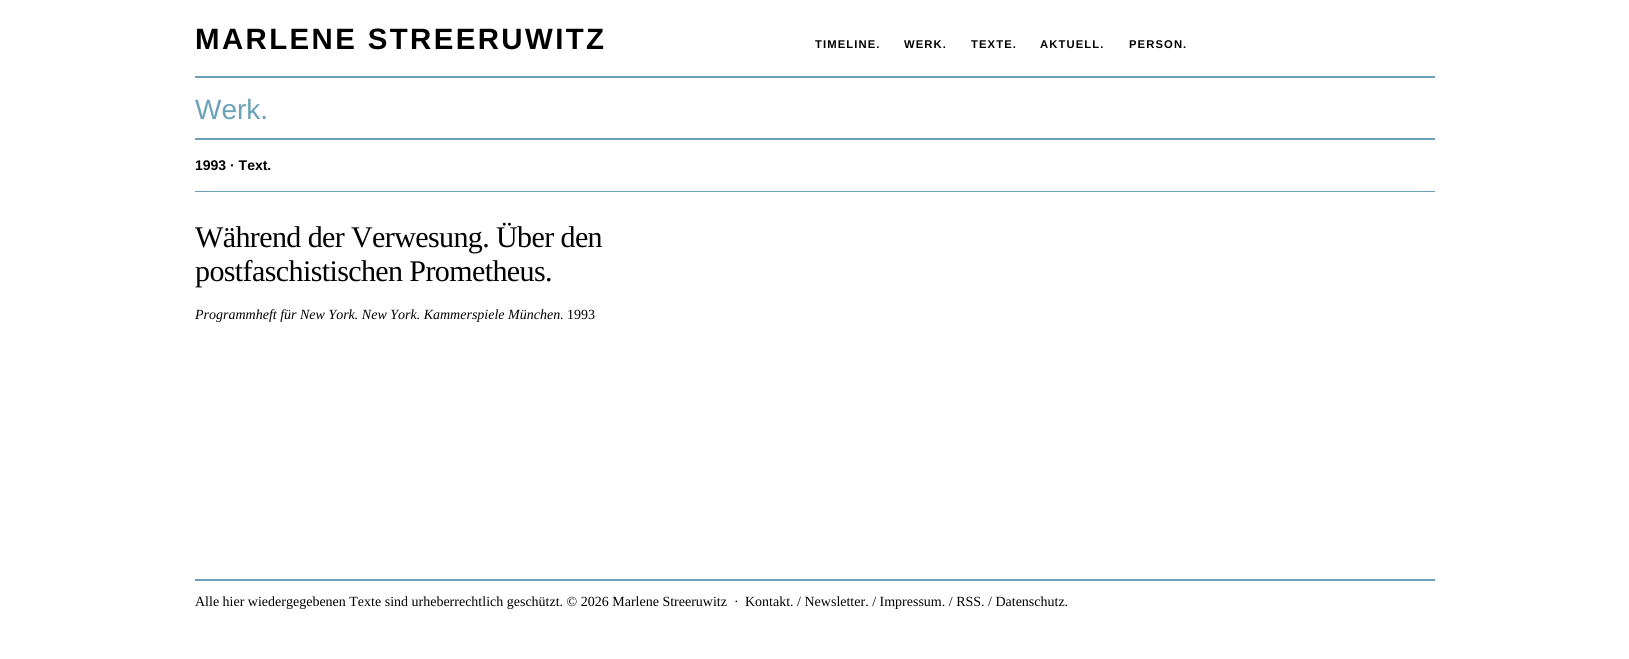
import math
import cairocffi as cairo

surface = cairo.ImageSurface(cairo.FORMAT_RGB24, 1629, 659)
ctx = cairo.Context(surface)
options = cairo.FontOptions()
options.set_hint_metrics(cairo.HINT_METRICS_OFF)
options.set_hint_style(cairo.HINT_STYLE_NONE)
ctx.set_font_options(options)
ctx.set_miter_limit(4)


def rgb(r, g, b):
    ctx.set_source_rgb(r / 255, g / 255, b / 255)


def face(family, size, italic, bold):
    ctx.select_font_face(family, cairo.FONT_SLANT_ITALIC if italic else cairo.FONT_SLANT_NORMAL, cairo.FONT_WEIGHT_BOLD if bold else cairo.FONT_WEIGHT_NORMAL)
    ctx.set_font_size(size)


def label(x, y, s):
    ctx.move_to(x, y)
    ctx.show_text(s)


def tracked(x, y, s, letter, word):
    ctx.move_to(x, y)
    for ch in s:
        ctx.show_text(ch)
        ctx.rel_move_to(letter + word * (ch == ' '), 0)


def rect(x, y, w, h):
    ctx.rectangle(x, y, w, h)
    ctx.fill()


rgb(255, 255, 255)
ctx.paint()
rgb(107, 162, 185)
rect(195, 76, 1240, 2)
face('Liberation Sans', 29.4, 0, 1)
rgb(0, 0, 0)
tracked(195, 49, 'MARLENE STREERUWITZ', 2.4, 0)
face('Liberation Sans', 11.25, 0, 1)
tracked(815, 48, 'TIMELINE.', 1.1, 0)
tracked(904, 48, 'WERK.', 1.1, 0)
tracked(971, 48, 'TEXTE.', 1.1, 0)
tracked(1040, 48, 'AKTUELL.', 1.1, 0)
tracked(1129, 48, 'PERSON.', 1.1, 0)
rgb(107, 162, 185)
rect(195, 138, 1240, 2)
face('Liberation Sans', 28, 0, 0)
label(195, 119, 'Werk.')
rect(195, 191, 1240, 1)
face('Liberation Sans', 14, 0, 1)
rgb(0, 0, 0)
label(195, 170, '1993 · Text.')
face('Liberation Serif', 30, 0, 0)
tracked(195, 247, 'Während der Verwesung. Über den', -0.6, 0)
tracked(195, 281, 'postfaschistischen Prometheus.', -0.6, 0)
face('Liberation Serif', 14, 1, 0)
label(195, 319, 'Programmheft für New York. New York. Kammerspiele München.')
face('Liberation Serif', 14, 0, 0)
label(567, 319, '1993')
rgb(107, 162, 185)
rect(195, 579, 1240, 2)
rgb(0, 0, 0)
label(195, 606, 'Alle hier wiedergegebenen Texte sind urheberrechtlich geschützt. © 2026 Marlene Streeruwitz  ·')
label(745, 606, 'Kontakt. / Newsletter. / Impressum. / RSS. / Datenschutz.')
surface.write_to_png('render.png')
